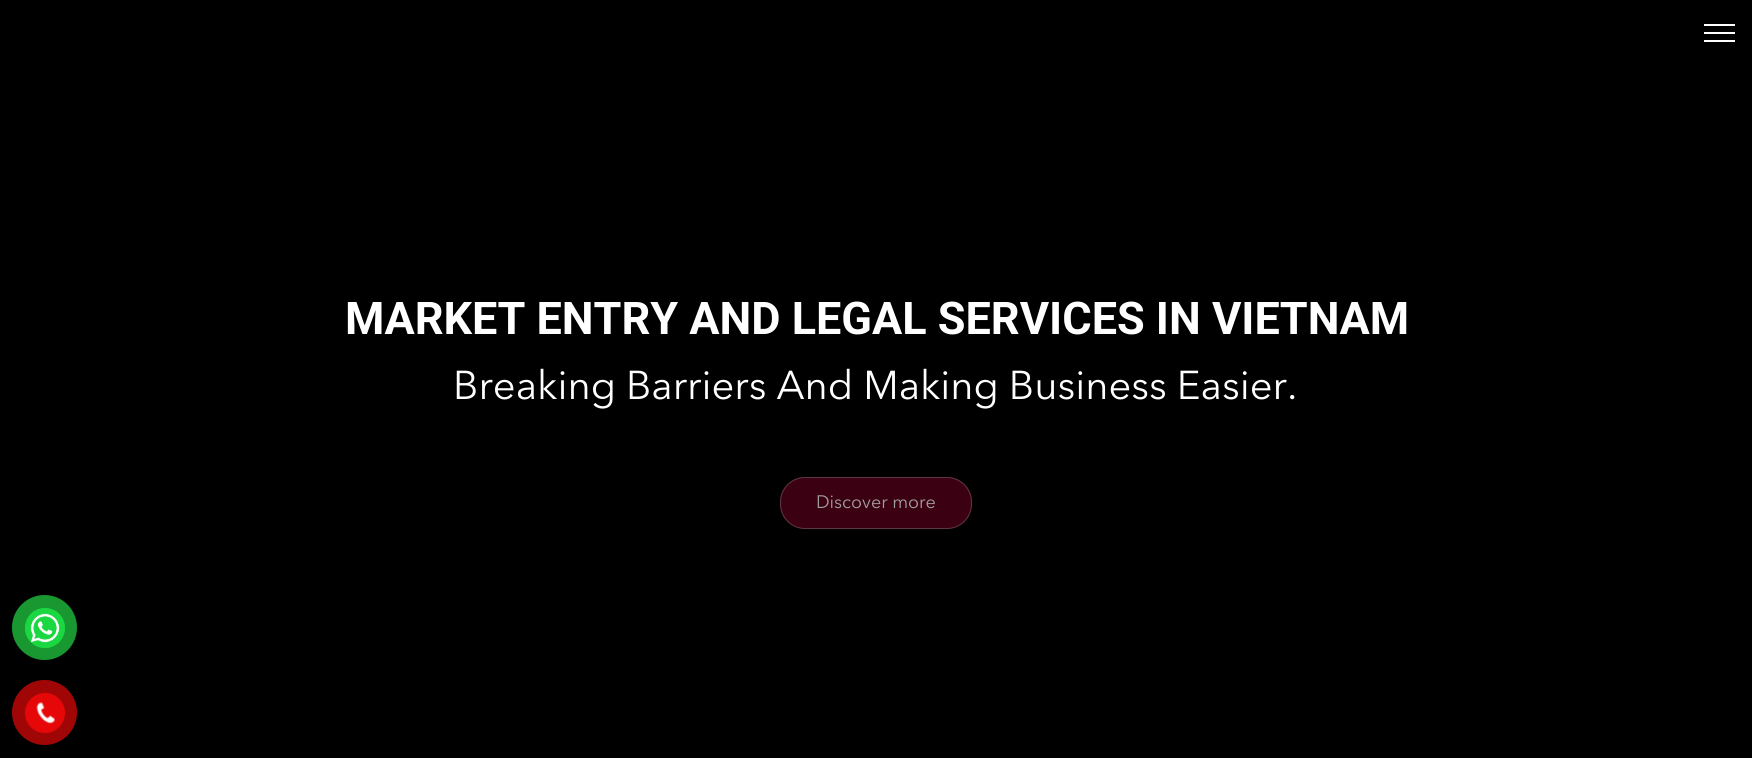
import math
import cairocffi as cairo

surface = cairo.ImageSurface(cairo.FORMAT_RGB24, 1752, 758)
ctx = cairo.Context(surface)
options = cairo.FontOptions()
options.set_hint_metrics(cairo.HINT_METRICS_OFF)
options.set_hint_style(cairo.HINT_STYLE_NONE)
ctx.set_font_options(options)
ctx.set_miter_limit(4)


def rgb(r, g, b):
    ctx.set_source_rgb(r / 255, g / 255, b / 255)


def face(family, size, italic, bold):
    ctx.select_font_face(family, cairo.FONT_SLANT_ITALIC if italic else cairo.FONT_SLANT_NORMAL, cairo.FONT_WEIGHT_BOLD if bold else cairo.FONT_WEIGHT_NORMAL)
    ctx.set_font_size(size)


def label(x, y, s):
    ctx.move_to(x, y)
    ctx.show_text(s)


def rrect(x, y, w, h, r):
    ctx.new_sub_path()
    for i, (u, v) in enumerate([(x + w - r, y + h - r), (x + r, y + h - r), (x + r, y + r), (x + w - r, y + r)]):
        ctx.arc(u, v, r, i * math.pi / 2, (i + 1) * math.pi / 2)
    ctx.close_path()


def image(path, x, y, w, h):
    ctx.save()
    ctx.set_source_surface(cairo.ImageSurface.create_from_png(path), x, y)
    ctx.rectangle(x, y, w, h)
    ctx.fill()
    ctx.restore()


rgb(0, 0, 0)
ctx.paint()
image('image0.png', 1704, 24, 31, 18)
face('Roboto', 45, 0, 1)
rgb(255, 255, 255)
label(345, 334, 'MARKET ENTRY AND LEGAL SERVICES IN VIETNAM')
face('Avenir Next', 40, 0, 0)
label(453, 399, 'Breaking Barriers And Making Business Easier.')
rgb(60, 0, 19)
rrect(780, 477, 192, 52, 25)
ctx.fill()
rrect(780.5, 477.5, 191, 51, 24.5)
ctx.set_source_rgba(0.624, 0.624, 0.624, 0.35)
ctx.set_line_width(1)
ctx.stroke()
face('Avenir Next', 18, 0, 0)
rgb(159, 159, 159)
label(816, 508, 'Discover more')
rgb(25, 152, 50)
ctx.new_path()
ctx.arc(44.5, 627.5, 32.5, 0, 2 * math.pi)
ctx.fill()
rgb(28, 215, 65)
ctx.arc(45, 628, 20, 0, 2 * math.pi)
ctx.fill()
image('image1.png', 25, 608, 40, 40)
rgb(161, 6, 6)
ctx.arc(44.5, 712.5, 32.5, 0, 2 * math.pi)
ctx.fill()
rgb(230, 8, 8)
ctx.arc(45, 713, 20, 0, 2 * math.pi)
ctx.fill()
image('image2.png', 36, 702, 19, 22)
surface.write_to_png('render.png')
